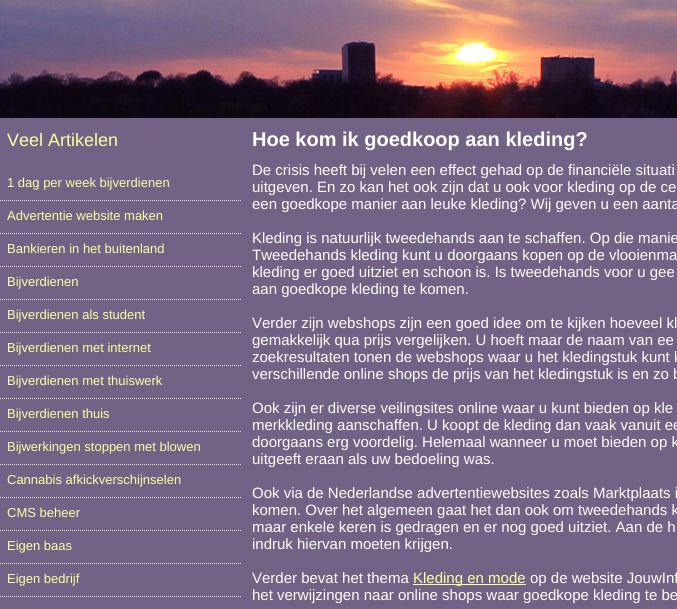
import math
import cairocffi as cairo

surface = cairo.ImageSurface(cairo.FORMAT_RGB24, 677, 609)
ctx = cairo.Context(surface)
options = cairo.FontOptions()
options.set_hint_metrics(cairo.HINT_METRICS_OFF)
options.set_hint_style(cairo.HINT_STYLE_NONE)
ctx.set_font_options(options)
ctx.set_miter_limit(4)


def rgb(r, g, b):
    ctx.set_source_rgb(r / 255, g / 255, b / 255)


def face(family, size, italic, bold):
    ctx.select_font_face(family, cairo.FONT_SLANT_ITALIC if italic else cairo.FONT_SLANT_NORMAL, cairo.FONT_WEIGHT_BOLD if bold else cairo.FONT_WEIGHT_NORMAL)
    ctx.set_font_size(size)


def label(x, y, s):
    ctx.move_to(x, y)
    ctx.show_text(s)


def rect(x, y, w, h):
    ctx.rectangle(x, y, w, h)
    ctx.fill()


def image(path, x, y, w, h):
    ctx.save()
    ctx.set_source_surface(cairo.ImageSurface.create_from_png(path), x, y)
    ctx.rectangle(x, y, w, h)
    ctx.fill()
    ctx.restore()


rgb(255, 255, 255)
ctx.paint()
image('image0.png', 0, 0, 677, 118)
rgb(114, 98, 133)
rect(0, 118, 677, 491)
face('Liberation Sans', 18, 0, 0)
rgb(253, 255, 163)
label(7, 146, 'Veel Artikelen')
ctx.new_path()
ctx.move_to(0, 200.5)
ctx.line_to(242, 200.5)
rgb(224, 224, 224)
ctx.set_line_width(1)
ctx.set_dash([1, 1])
ctx.stroke()
face('Liberation Sans', 13, 0, 0)
rgb(253, 255, 163)
label(7, 187, '1 dag per week bijverdienen')
ctx.new_path()
ctx.move_to(0, 233.5)
ctx.line_to(242, 233.5)
rgb(224, 224, 224)
ctx.stroke()
rgb(253, 255, 163)
label(7, 220, 'Advertentie website maken')
ctx.new_path()
ctx.move_to(0, 266.5)
ctx.line_to(242, 266.5)
rgb(224, 224, 224)
ctx.stroke()
rgb(253, 255, 163)
label(7, 253, 'Bankieren in het buitenland')
ctx.new_path()
ctx.move_to(0, 299.5)
ctx.line_to(242, 299.5)
rgb(224, 224, 224)
ctx.stroke()
rgb(253, 255, 163)
label(7, 286, 'Bijverdienen')
ctx.new_path()
ctx.move_to(0, 332.5)
ctx.line_to(242, 332.5)
rgb(224, 224, 224)
ctx.stroke()
rgb(253, 255, 163)
label(7, 319, 'Bijverdienen als student')
ctx.new_path()
ctx.move_to(0, 365.5)
ctx.line_to(242, 365.5)
rgb(224, 224, 224)
ctx.stroke()
rgb(253, 255, 163)
label(7, 352, 'Bijverdienen met internet')
ctx.new_path()
ctx.move_to(0, 398.5)
ctx.line_to(242, 398.5)
rgb(224, 224, 224)
ctx.stroke()
rgb(253, 255, 163)
label(7, 385, 'Bijverdienen met thuiswerk')
ctx.new_path()
ctx.move_to(0, 431.5)
ctx.line_to(242, 431.5)
rgb(224, 224, 224)
ctx.stroke()
rgb(253, 255, 163)
label(7, 418, 'Bijverdienen thuis')
ctx.new_path()
ctx.move_to(0, 464.5)
ctx.line_to(242, 464.5)
rgb(224, 224, 224)
ctx.stroke()
rgb(253, 255, 163)
label(7, 451, 'Bijwerkingen stoppen met blowen')
ctx.new_path()
ctx.move_to(0, 497.5)
ctx.line_to(242, 497.5)
rgb(224, 224, 224)
ctx.stroke()
rgb(253, 255, 163)
label(7, 484, 'Cannabis afkickverschijnselen')
ctx.new_path()
ctx.move_to(0, 530.5)
ctx.line_to(242, 530.5)
rgb(224, 224, 224)
ctx.stroke()
rgb(253, 255, 163)
label(7, 517, 'CMS beheer')
ctx.new_path()
ctx.move_to(0, 563.5)
ctx.line_to(242, 563.5)
rgb(224, 224, 224)
ctx.stroke()
rgb(253, 255, 163)
label(7, 550, 'Eigen baas')
ctx.new_path()
ctx.move_to(0, 596.5)
ctx.line_to(242, 596.5)
rgb(224, 224, 224)
ctx.stroke()
rgb(253, 255, 163)
label(7, 583, 'Eigen bedrijf')
face('Liberation Sans', 20, 0, 1)
rgb(255, 254, 252)
label(252, 146, 'Hoe kom ik goedkoop aan kleding?')
face('Liberation Sans', 15, 0, 0)
label(252, 175, 'De crisis heeft bij velen een effect gehad op de financiële situati')
label(252, 192, 'uitgeven. En zo kan het ook zijn dat u ook voor kleding op de ce')
label(252, 209, 'een goedkope manier aan leuke kleding? Wij geven u een aanta')
label(252, 243, 'Kleding is natuurlijk tweedehands aan te schaffen. Op die manie')
label(252, 260, 'Tweedehands kleding kunt u doorgaans kopen op de vlooienma')
label(252, 277, 'kleding er goed uitziet en schoon is. Is tweedehands voor u gee')
label(252, 294, 'aan goedkope kleding te komen.')
label(252, 328, 'Verder zijn webshops zijn een goed idee om te kijken hoeveel kl')
label(252, 345, 'gemakkelijk qua prijs vergelijken. U hoeft maar de naam van ee')
label(252, 362, 'zoekresultaten tonen de webshops waar u het kledingstuk kunt k')
label(252, 379, 'verschillende online shops de prijs van het kledingstuk is en zo b')
label(252, 413, 'Ook zijn er diverse veilingsites online waar u kunt bieden op kle')
label(252, 430, 'merkkleding aanschaffen. U koopt de kleding dan vaak vanuit ee')
label(252, 447, 'doorgaans erg voordelig. Helemaal wanneer u moet bieden op k')
label(252, 464, 'uitgeeft eraan als uw bedoeling was.')
label(252, 498, 'Ook via de Nederlandse advertentiewebsites zoals Marktplaats i')
label(252, 515, 'komen. Over het algemeen gaat het dan ook om tweedehands k')
label(252, 532, 'maar enkele keren is gedragen en er nog goed uitziet. Aan de h')
label(252, 549, 'indruk hiervan moeten krijgen.')
label(252, 583, 'Verder bevat het thema')
rgb(253, 255, 163)
rect(413, 584, 113, 1)
label(413, 583, 'Kleding en mode')
rgb(255, 254, 252)
label(530, 583, 'op de website JouwInf')
label(252, 600, 'het verwijzingen naar online shops waar goedkope kleding te be')
surface.write_to_png('render.png')
